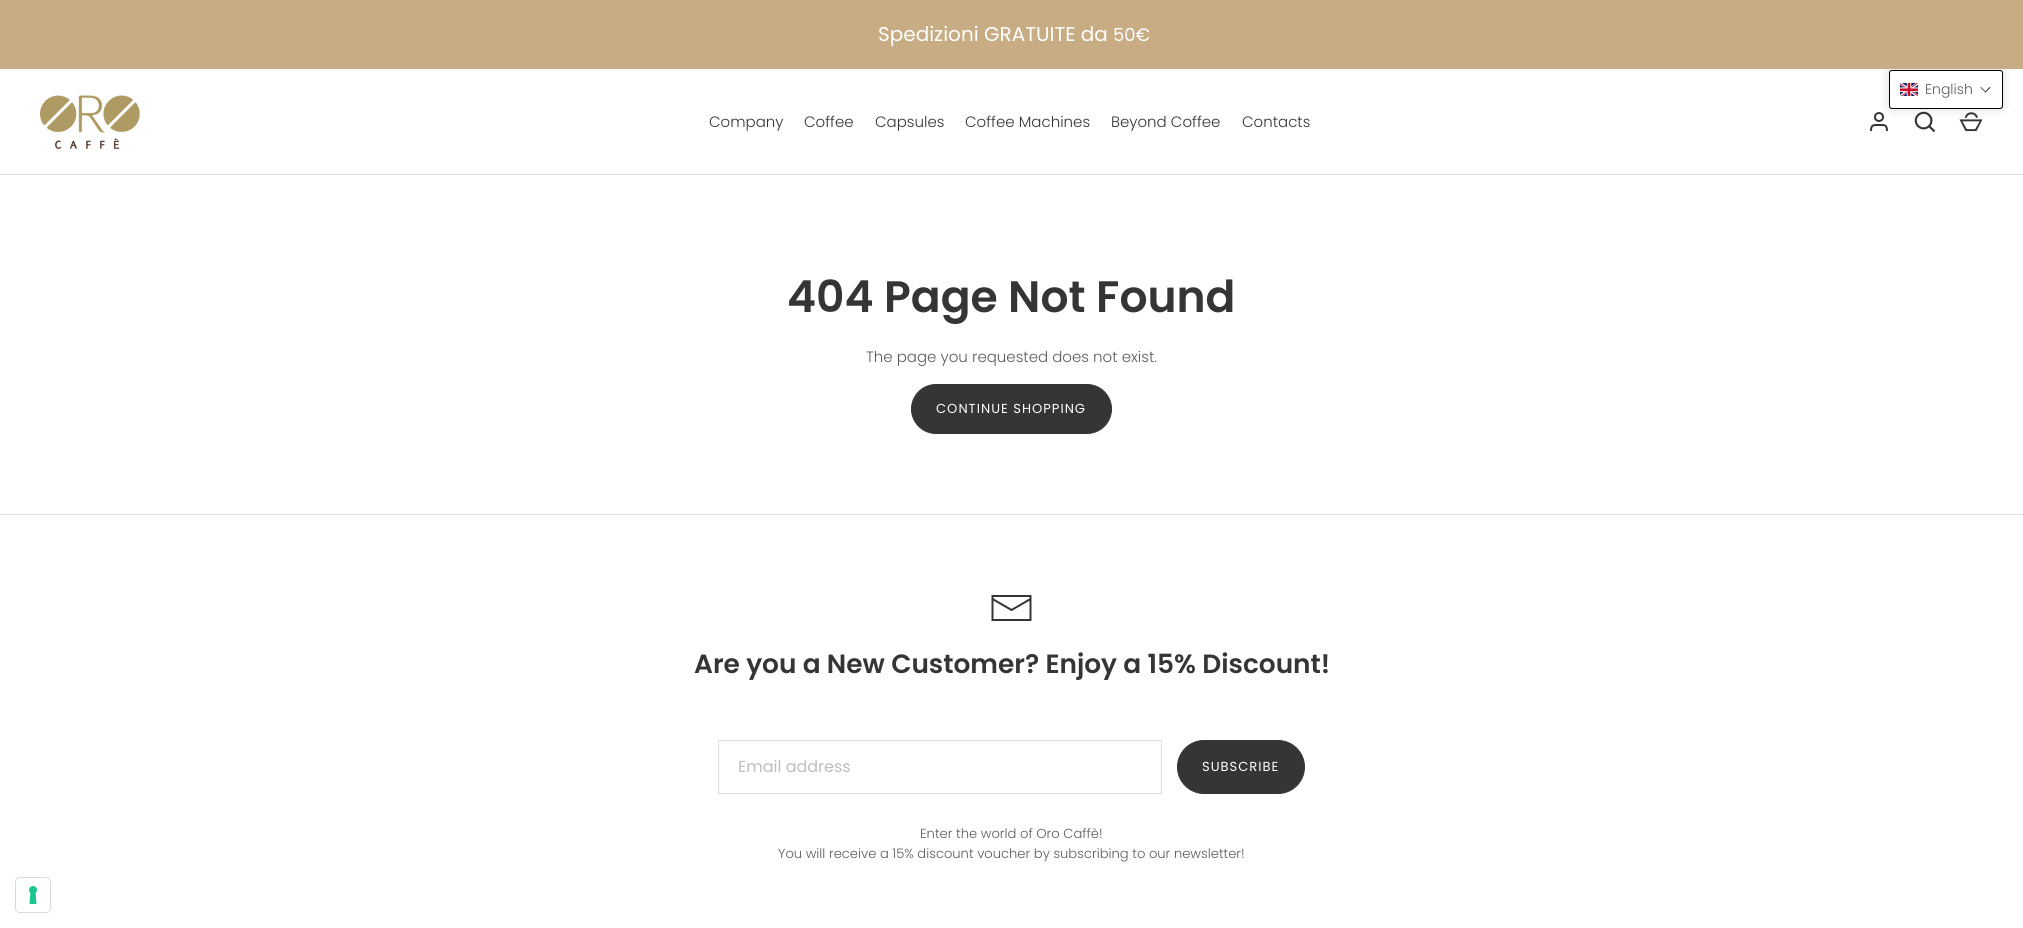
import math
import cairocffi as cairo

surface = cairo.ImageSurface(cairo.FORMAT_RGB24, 2023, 928)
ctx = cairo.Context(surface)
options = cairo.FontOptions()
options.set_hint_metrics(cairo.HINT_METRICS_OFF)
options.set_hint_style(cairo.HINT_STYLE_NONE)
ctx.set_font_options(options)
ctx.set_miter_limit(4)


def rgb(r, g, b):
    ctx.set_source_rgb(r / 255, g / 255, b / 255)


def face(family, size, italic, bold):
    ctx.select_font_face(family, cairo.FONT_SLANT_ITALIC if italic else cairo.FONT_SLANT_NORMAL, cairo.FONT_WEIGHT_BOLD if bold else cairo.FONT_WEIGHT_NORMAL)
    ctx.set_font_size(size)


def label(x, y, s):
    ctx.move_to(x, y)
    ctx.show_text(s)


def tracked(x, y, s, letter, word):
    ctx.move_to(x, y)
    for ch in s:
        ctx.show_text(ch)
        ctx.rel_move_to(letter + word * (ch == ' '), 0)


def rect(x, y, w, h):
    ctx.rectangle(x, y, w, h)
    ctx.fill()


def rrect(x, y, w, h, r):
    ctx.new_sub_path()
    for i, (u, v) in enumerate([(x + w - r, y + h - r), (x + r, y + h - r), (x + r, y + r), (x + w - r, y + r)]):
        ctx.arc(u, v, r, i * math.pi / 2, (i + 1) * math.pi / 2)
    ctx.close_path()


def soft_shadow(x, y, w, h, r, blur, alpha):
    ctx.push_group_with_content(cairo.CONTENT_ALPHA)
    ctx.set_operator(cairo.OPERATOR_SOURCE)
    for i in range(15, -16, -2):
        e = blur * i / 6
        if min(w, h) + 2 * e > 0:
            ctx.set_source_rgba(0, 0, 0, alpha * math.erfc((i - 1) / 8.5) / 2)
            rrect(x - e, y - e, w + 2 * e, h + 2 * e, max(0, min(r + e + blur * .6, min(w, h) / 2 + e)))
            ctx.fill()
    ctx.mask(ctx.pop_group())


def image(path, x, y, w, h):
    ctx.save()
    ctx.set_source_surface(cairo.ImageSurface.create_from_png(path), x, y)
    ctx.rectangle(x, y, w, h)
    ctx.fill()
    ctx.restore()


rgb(255, 255, 255)
ctx.paint()
ctx.arc(1879, 117, 4, 0, 2 * math.pi)
rgb(52, 53, 52)
ctx.stroke()
ctx.new_path()
ctx.move_to(1887, 131)
ctx.curve_to(1887, 124.5, 1884.5, 125, 1879, 125)
ctx.curve_to(1873.5, 125, 1871, 124.5, 1871, 131)
ctx.stroke()
image('image2.png', 1914, 111, 22, 22)
image('image3.png', 1959, 112, 24, 20)
rgb(0, 0, 0)
soft_shadow(1889, 70, 114, 39, 3, 5, 0.15)
rgb(199, 172, 132)
rect(0, 0, 2023, 69)
face('Poppins', 20, 0, 0)
rgb(255, 255, 255)
label(878, 41, 'Spedizioni GRATUITE da')
face('Poppins', 18, 0, 0)
label(1113, 41, '50€')
rrect(1889.5, 70.5, 113, 38, 2.5)
ctx.fill_preserve()
rgb(0, 0, 0)
ctx.set_line_width(1)
ctx.stroke()
image('image0.png', 1900, 83, 18, 13)
face('Poppins Light', 14, 0, 0)
rgb(92, 92, 92)
label(1925, 94, 'English')
rgb(26, 26, 26)
ctx.new_path()
ctx.move_to(1989.5, 87)
ctx.line_to(1990.5, 87.5)
ctx.line_to(1985.5, 92.5)
ctx.line_to(1985, 92)
ctx.close_path()
ctx.fill()
ctx.new_path()
ctx.move_to(1981, 87)
ctx.line_to(1986, 92)
ctx.line_to(1985.5, 92.5)
ctx.line_to(1980.5, 87.5)
ctx.close_path()
ctx.fill()
image('image1.png', 40, 95, 100, 54)
face('Poppins Light', 15, 0, 0)
rgb(52, 53, 52)
label(709, 127, 'Company')
label(804, 127, 'Coffee')
label(875, 127, 'Capsules')
label(965, 127, 'Coffee Machines')
label(1111, 127, 'Beyond Coffee')
label(1242, 127, 'Contacts')
rgb(222, 222, 222)
rect(0, 174, 2023, 1)
face('Poppins SemiBold', 44, 0, 0)
rgb(52, 53, 52)
label(787, 312, '404 Page Not Found')
face('Poppins Light', 15, 0, 0)
rgb(92, 92, 92)
label(866, 362, 'The page you requested does not exist.')
rgb(52, 53, 52)
rrect(911.5, 384.5, 200, 49, 24.5)
ctx.fill_preserve()
ctx.stroke()
face('Poppins', 13.1, 0, 0)
rgb(255, 255, 255)
tracked(936, 413, 'CONTINUE SHOPPING', 1, 0)
rgb(222, 222, 222)
rect(0, 514, 2023, 1)
ctx.new_path()
ctx.move_to(992.5, 596)
ctx.line_to(992.5, 620)
ctx.line_to(1030.5, 620)
ctx.line_to(1030.5, 596)
ctx.close_path()
ctx.move_to(992.5, 599)
ctx.line_to(1011.5, 610)
ctx.line_to(1030.5, 599)
rgb(52, 53, 52)
ctx.set_line_width(2)
ctx.stroke()
face('Poppins SemiBold', 26.4, 0, 0)
label(694, 673, 'Are you a New Customer? Enjoy a 15% Discount!')
ctx.rectangle(718.5, 740.5, 443, 53)
rgb(222, 222, 222)
ctx.set_line_width(1)
ctx.stroke()
face('Poppins', 16, 0, 0)
rgb(190, 190, 190)
label(738, 772, 'Email address')
rgb(52, 53, 52)
rrect(1177.5, 740.5, 127, 53, 26.5)
ctx.fill_preserve()
ctx.stroke()
face('Poppins', 13.1, 0, 0)
rgb(255, 255, 255)
tracked(1202, 771, 'SUBSCRIBE', 1, 0)
face('Poppins Light', 13.1, 0, 0)
rgb(92, 92, 92)
label(920, 838, 'Enter the world of Oro Caffè!')
label(778, 858, 'You will receive a 15% discount voucher by subscribing to our newsletter!')
rrect(15.5, 877.5, 35, 35, 4.5)
rgb(217, 217, 217)
ctx.stroke()
rgb(255, 255, 255)
rrect(16, 878, 34, 34, 4)
ctx.fill()
image('image4.png', 29, 886, 8, 18)
surface.write_to_png('render.png')
